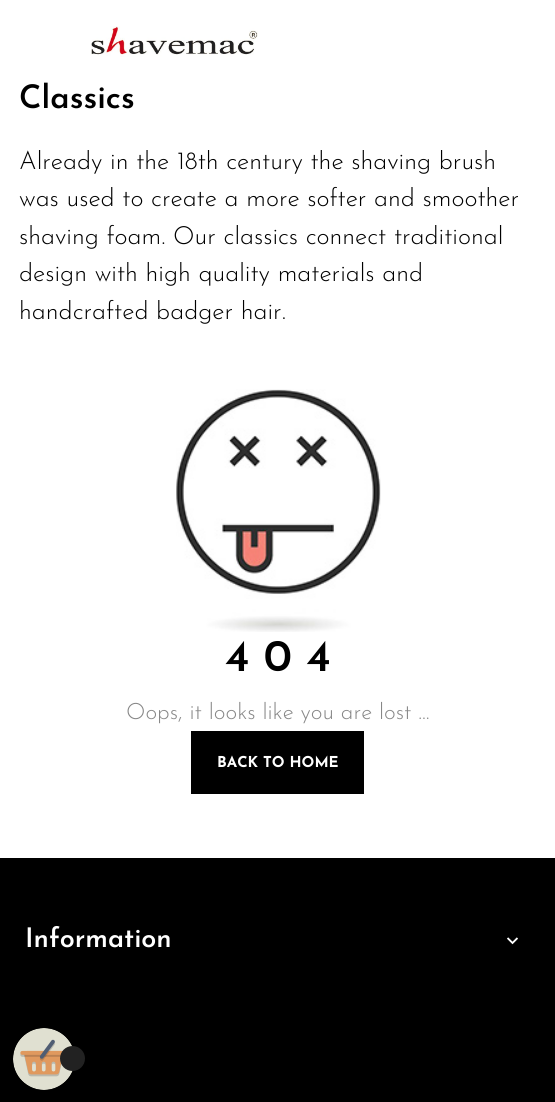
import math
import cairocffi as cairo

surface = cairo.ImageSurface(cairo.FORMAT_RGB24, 555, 1102)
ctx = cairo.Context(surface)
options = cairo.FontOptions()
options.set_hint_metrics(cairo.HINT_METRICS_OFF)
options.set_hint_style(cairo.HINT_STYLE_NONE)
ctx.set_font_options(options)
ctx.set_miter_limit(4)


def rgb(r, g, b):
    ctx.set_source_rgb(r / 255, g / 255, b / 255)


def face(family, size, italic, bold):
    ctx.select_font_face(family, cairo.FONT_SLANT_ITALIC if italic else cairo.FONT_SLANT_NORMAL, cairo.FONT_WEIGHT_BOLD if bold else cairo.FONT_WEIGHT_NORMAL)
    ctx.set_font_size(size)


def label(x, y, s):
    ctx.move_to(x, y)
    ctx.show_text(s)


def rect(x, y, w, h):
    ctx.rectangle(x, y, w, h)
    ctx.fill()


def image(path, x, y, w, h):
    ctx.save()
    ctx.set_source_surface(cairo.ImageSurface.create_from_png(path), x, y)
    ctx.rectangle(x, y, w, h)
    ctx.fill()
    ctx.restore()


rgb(255, 255, 255)
ctx.paint()
image('image0.png', 91, 26, 167, 31)
face('Josefin Sans SemiBold', 32.5, 0, 0)
rgb(0, 0, 0)
label(19, 108, 'Classics')
face('Josefin Sans Light', 25, 0, 0)
label(19, 169, 'Already in the 18th century the shaving brush')
label(19, 206, 'was used to create a more softer and smoother')
label(19, 244, 'shaving foam. Our classics connect traditional')
label(19, 281, 'design with high quality materials and')
label(19, 319, 'handcrafted badger hair.')
image('image1.png', 176, 389, 205, 243)
face('Josefin Sans SemiBold', 45, 0, 0)
label(225, 671, '4 0 4')
face('Josefin Sans Light', 22.5, 0, 0)
rgb(135, 135, 135)
label(126, 719, 'Oops, it looks like you are lost ...')
rgb(0, 0, 0)
rect(191, 731, 173, 63)
face('Josefin Sans', 15, 0, 1)
rgb(255, 255, 255)
label(217, 767, 'BACK TO HOME')
rgb(0, 0, 0)
rect(0, 858, 555, 244)
face('Josefin Sans SemiBold', 27, 0, 0)
rgb(255, 255, 255)
label(25, 947, 'Information')
image('image2.png', 507, 937, 11, 8)
image('image3.png', 13, 1028, 60, 62)
rgb(34, 34, 34)
ctx.arc(72.5, 1058.5, 12.5, 0, 2 * math.pi)
ctx.fill()
surface.write_to_png('render.png')
